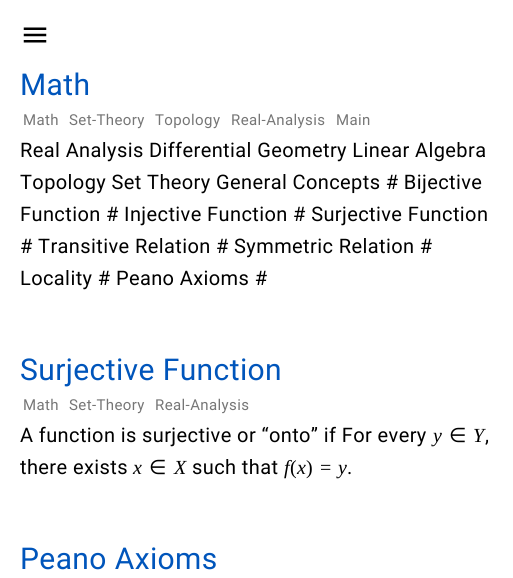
import math
import cairocffi as cairo

surface = cairo.ImageSurface(cairo.FORMAT_RGB24, 513, 578)
ctx = cairo.Context(surface)
options = cairo.FontOptions()
options.set_hint_metrics(cairo.HINT_METRICS_OFF)
options.set_hint_style(cairo.HINT_STYLE_NONE)
ctx.set_font_options(options)
ctx.set_miter_limit(4)


def rgb(r, g, b):
    ctx.set_source_rgb(r / 255, g / 255, b / 255)


def face(family, size, italic, bold):
    ctx.select_font_face(family, cairo.FONT_SLANT_ITALIC if italic else cairo.FONT_SLANT_NORMAL, cairo.FONT_WEIGHT_BOLD if bold else cairo.FONT_WEIGHT_NORMAL)
    ctx.set_font_size(size)


def tracked(x, y, s, letter, word):
    ctx.move_to(x, y)
    for ch in s:
        ctx.show_text(ch)
        ctx.rel_move_to(letter + word * (ch == ' '), 0)


def image(path, x, y, w, h):
    ctx.save()
    ctx.set_source_surface(cairo.ImageSurface.create_from_png(path), x, y)
    ctx.rectangle(x, y, w, h)
    ctx.fill()
    ctx.restore()


rgb(255, 255, 255)
ctx.paint()
image('image0.png', 23, 27, 24, 16)
face('Roboto', 30, 0, 0)
rgb(0, 85, 187)
tracked(20, 95, 'Math', 0.4, 0)
face('Roboto', 15, 0, 0)
rgb(118, 118, 118)
tracked(23, 125, 'Math', 0.4, 0)
tracked(69, 125, 'Set-Theory', 0.4, 0)
tracked(155, 125, 'Topology', 0.4, 0)
tracked(231, 125, 'Real-Analysis', 0.4, 0)
tracked(336, 125, 'Main', 0.4, 0)
face('Roboto', 20, 0, 0)
rgb(0, 0, 0)
tracked(20, 157, 'Real Analysis Differential Geometry Linear Algebra', 0.4, 0)
tracked(20, 189, 'Topology Set Theory General Concepts # Bijective', 0.4, 0)
tracked(20, 221, 'Function # Injective Function # Surjective Function', 0.4, 0)
tracked(20, 253, '# Transitive Relation # Symmetric Relation #', 0.4, 0)
tracked(20, 285, 'Locality # Peano Axioms #', 0.4, 0)
face('Roboto', 30, 0, 0)
rgb(0, 85, 187)
tracked(20, 380, 'Surjective Function', 0.4, 0)
face('Roboto', 15, 0, 0)
rgb(118, 118, 118)
tracked(23, 410, 'Math', 0.4, 0)
tracked(69, 410, 'Set-Theory', 0.4, 0)
tracked(155, 410, 'Real-Analysis', 0.4, 0)
face('Roboto', 20, 0, 0)
rgb(0, 0, 0)
tracked(20, 442, 'A function is surjective or “onto” if For every', 0.4, 0)
face('Liberation Serif', 20, 1, 0)
tracked(433, 442, 'y', 0.4, 0)
face('DejaVu Sans', 20, 0, 0)
tracked(449, 442, '∈', 0.4, 0)
face('Liberation Serif', 20, 1, 0)
tracked(473, 442, 'Y', 0.4, 0)
face('Roboto', 20, 0, 0)
tracked(485, 442, ',', 0.4, 0)
tracked(20, 474, 'there exists', 0.4, 0)
face('Liberation Serif', 20, 1, 0)
tracked(133, 474, 'x', 0.4, 0)
face('DejaVu Sans', 20, 0, 0)
tracked(149, 474, '∈', 0.4, 0)
face('Liberation Serif', 20, 1, 0)
tracked(174, 474, 'X', 0.4, 0)
face('Roboto', 20, 0, 0)
tracked(192, 474, 'such that', 0.4, 0)
face('Liberation Serif', 20, 1, 0)
tracked(284, 474, 'f', 0.4, 0)
face('Liberation Serif', 20, 0, 0)
tracked(290, 474, '(', 0.4, 0)
face('Liberation Serif', 20, 1, 0)
tracked(297, 474, 'x', 0.4, 0)
face('Liberation Serif', 20, 0, 0)
tracked(306, 474, ')', 0.4, 0)
tracked(320, 474, '=', 0.4, 0)
face('Liberation Serif', 20, 1, 0)
tracked(338, 474, 'y', 0.4, 0)
face('Roboto', 20, 0, 0)
tracked(347, 474, '.', 0.4, 0)
face('Roboto', 30, 0, 0)
rgb(0, 85, 187)
tracked(20, 569, 'Peano Axioms', 0.4, 0)
surface.write_to_png('render.png')
